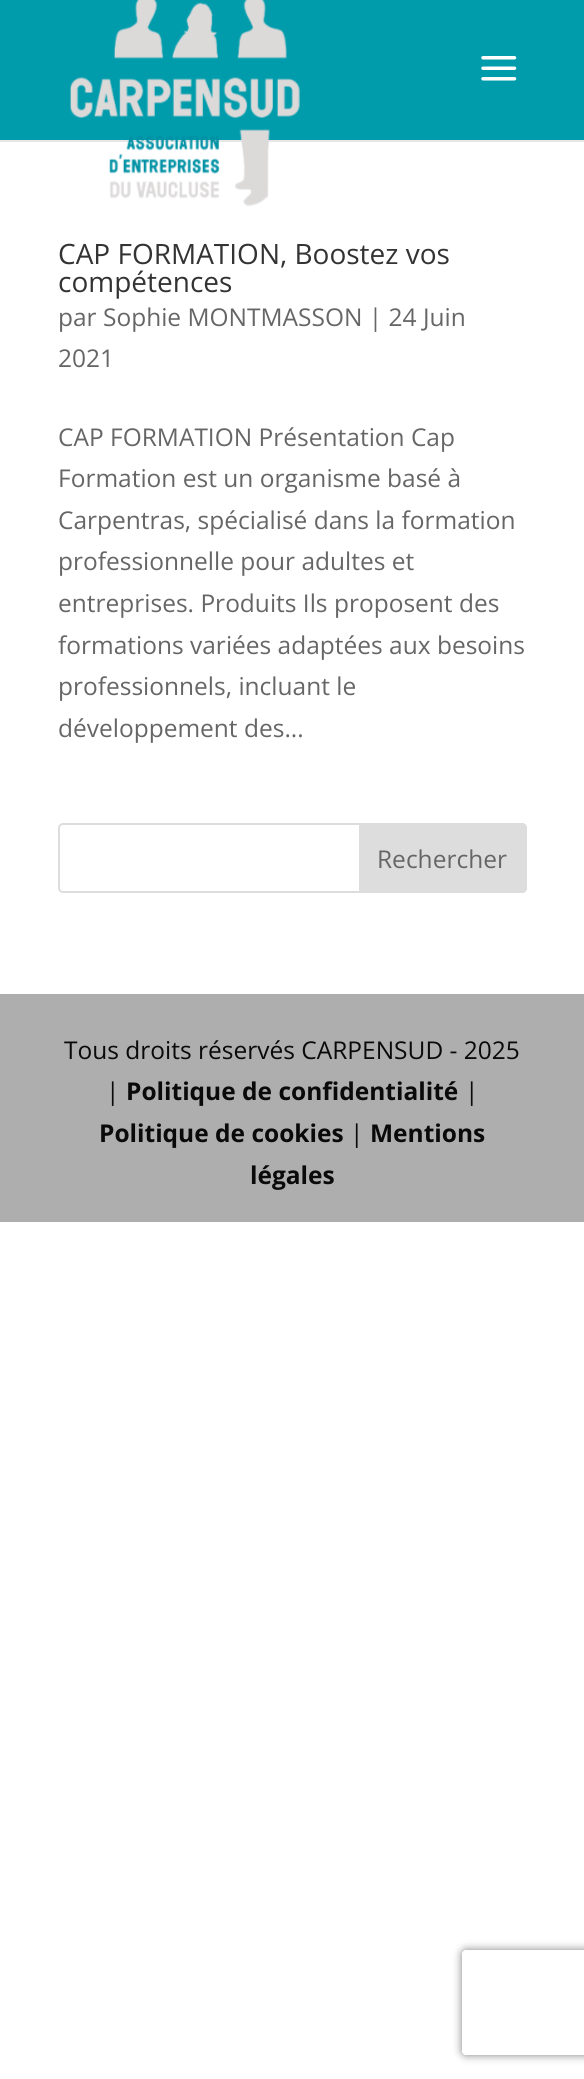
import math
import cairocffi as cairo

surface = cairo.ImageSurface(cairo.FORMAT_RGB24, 584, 2079)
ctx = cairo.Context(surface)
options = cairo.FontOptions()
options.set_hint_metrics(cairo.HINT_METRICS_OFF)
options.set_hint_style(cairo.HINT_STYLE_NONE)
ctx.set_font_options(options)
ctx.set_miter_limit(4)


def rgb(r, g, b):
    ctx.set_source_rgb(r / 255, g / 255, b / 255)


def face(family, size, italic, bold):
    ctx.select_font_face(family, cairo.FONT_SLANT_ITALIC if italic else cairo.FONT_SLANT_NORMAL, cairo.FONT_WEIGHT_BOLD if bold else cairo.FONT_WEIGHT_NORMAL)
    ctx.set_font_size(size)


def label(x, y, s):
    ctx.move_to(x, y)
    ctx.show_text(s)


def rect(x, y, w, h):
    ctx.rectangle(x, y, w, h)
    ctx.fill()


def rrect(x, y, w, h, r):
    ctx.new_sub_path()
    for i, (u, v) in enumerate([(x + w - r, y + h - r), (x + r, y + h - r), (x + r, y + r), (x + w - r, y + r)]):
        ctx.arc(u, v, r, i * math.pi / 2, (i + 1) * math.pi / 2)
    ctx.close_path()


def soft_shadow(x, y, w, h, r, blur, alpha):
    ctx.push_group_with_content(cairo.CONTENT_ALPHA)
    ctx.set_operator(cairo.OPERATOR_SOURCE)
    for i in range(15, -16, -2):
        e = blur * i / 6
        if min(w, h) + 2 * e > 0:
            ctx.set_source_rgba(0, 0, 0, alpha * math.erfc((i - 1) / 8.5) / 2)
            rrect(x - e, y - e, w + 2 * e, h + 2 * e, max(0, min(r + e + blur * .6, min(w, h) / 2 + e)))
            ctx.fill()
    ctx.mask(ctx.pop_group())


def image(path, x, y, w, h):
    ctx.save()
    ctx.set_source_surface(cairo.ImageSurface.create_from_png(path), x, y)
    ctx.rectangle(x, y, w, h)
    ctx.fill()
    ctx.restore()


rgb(255, 255, 255)
ctx.paint()
rgb(230, 230, 230)
ctx.new_path()
ctx.move_to(0, 140)
ctx.line_to(0, 142)
ctx.line_to(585, 142)
ctx.line_to(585, 2)
ctx.line_to(584, 2)
ctx.line_to(584, 140)
ctx.close_path()
ctx.fill()
rgb(0, 156, 172)
rect(0, 0, 584, 140)
image('image0.png', 69, 0, 231, 207)
image('image1.png', 481, 56, 36, 25)
face('Open Sans', 28, 0, 0)
rgb(51, 51, 51)
label(58, 264, 'CAP FORMATION, Boostez vos')
label(58, 292, 'compétences')
face('Open Sans', 24.5, 0, 0)
rgb(102, 102, 102)
label(58, 326, 'par Sophie MONTMASSON | 24 Juin')
label(58, 367, '2021')
label(58, 446, 'CAP FORMATION Présentation Cap')
label(58, 487, 'Formation est un organisme basé à')
label(58, 529, 'Carpentras, spécialisé dans la formation')
label(58, 570, 'professionnelle pour adultes et')
label(58, 612, 'entreprises. Produits Ils proposent des')
label(58, 654, 'formations variées adaptées aux besoins')
label(58, 695, 'professionnels, incluant le')
label(58, 737, 'développement des...')
rrect(59, 824, 467, 68, 4)
rgb(221, 221, 221)
ctx.stroke()
ctx.new_path()
ctx.move_to(360, 824)
ctx.line_to(522, 824)
ctx.curve_to(524, 824, 526, 826, 526, 828)
ctx.line_to(526, 888)
ctx.curve_to(526, 890, 524, 892, 522, 892)
ctx.line_to(360, 892)
ctx.close_path()
ctx.fill_preserve()
ctx.stroke()
rgb(102, 102, 102)
label(377, 868, 'Rechercher')
rgb(174, 174, 174)
rect(0, 994, 584, 228)
rgb(10, 10, 10)
label(64, 1059, 'Tous droits réservés CARPENSUD - 2025')
label(106, 1100, '|')
face('Open Sans', 24.5, 0, 1)
label(126, 1100, 'Politique de confidentialité')
face('Open Sans', 24.5, 0, 0)
label(465, 1100, '|')
face('Open Sans', 24.5, 0, 1)
label(99, 1142, 'Politique de cookies')
face('Open Sans', 24.5, 0, 0)
label(350, 1142, '|')
face('Open Sans', 24.5, 0, 1)
label(370, 1142, 'Mentions')
label(250, 1184, 'légales')
ctx.save()
ctx.set_fill_rule(cairo.FILL_RULE_EVEN_ODD)
ctx.new_path()
ctx.move_to(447, 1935)
ctx.line_to(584, 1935)
ctx.line_to(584, 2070)
ctx.line_to(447, 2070)
ctx.close_path()
ctx.move_to(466, 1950)
ctx.line_to(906, 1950)
ctx.curve_to(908, 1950, 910, 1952, 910, 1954)
ctx.line_to(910, 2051)
ctx.curve_to(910, 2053, 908, 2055, 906, 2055)
ctx.line_to(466, 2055)
ctx.curve_to(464, 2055, 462, 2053, 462, 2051)
ctx.line_to(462, 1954)
ctx.curve_to(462, 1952, 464, 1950, 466, 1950)
ctx.close_path()
ctx.clip()
rgb(128, 128, 128)
soft_shadow(462, 1950, 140, 105, 4, 4.5, 1)
ctx.restore()
surface.write_to_png('render.png')
